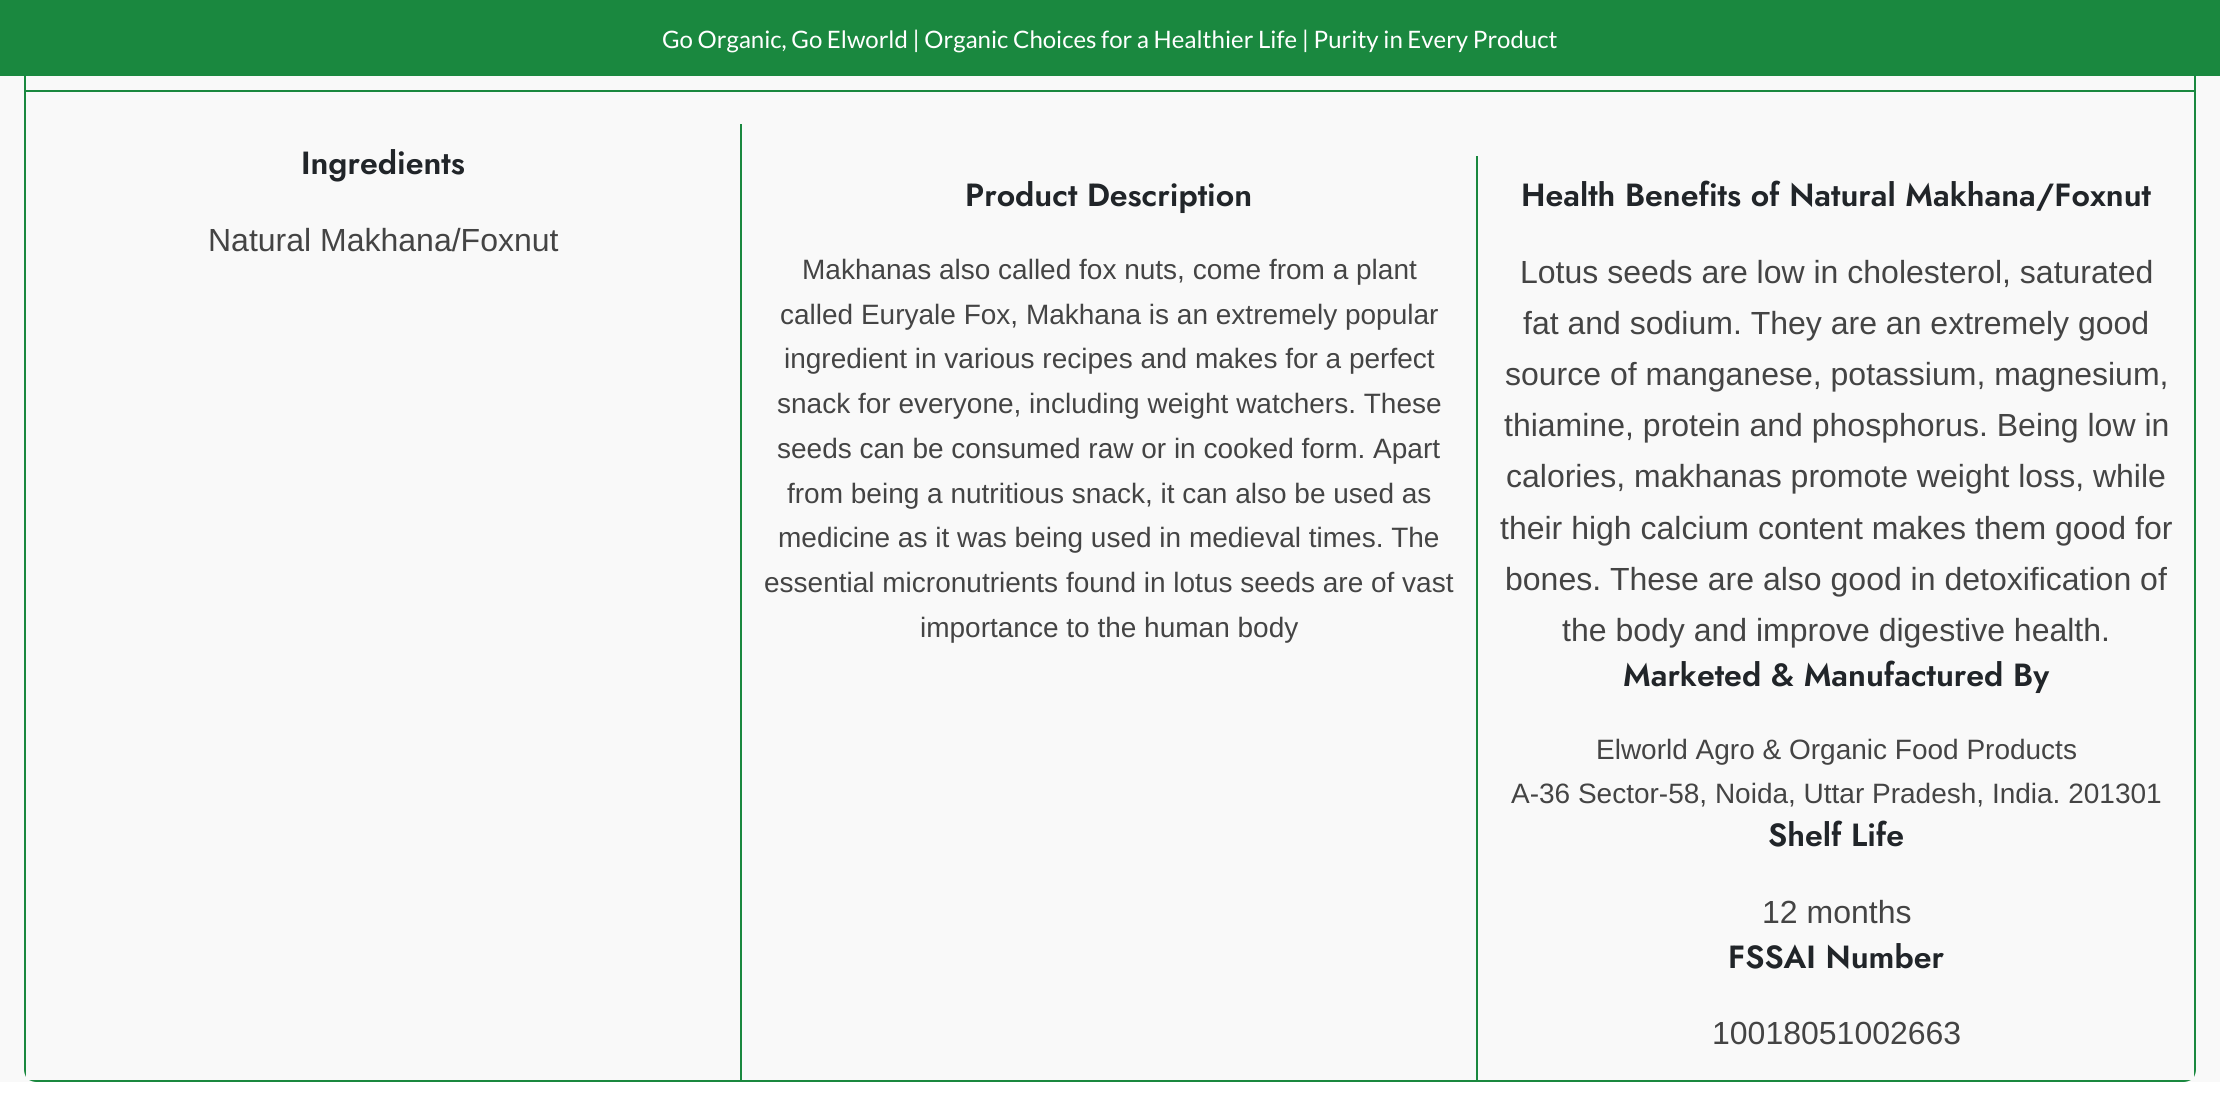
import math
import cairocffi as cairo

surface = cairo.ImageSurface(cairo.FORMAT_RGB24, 2220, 1114)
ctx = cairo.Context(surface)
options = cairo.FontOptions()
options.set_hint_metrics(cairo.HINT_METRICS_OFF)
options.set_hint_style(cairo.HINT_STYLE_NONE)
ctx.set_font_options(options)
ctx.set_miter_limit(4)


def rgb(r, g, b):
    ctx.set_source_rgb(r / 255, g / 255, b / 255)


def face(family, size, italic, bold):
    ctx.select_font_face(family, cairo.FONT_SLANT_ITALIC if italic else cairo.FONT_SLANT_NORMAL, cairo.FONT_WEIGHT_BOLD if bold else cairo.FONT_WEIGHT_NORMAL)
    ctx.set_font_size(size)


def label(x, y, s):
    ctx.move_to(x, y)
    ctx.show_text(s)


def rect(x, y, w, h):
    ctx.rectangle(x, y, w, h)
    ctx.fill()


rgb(249, 249, 249)
ctx.paint()
rgb(26, 136, 63)
ctx.set_fill_rule(cairo.FILL_RULE_EVEN_ODD)
ctx.new_path()
ctx.move_to(26, -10)
ctx.line_to(2194, -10)
ctx.line_to(2194, 1077)
ctx.curve_to(2195, 1075, 2196, 1072, 2196, 1070)
ctx.line_to(2196, -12)
ctx.line_to(24, -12)
ctx.line_to(24, 1070)
ctx.curve_to(24, 1072, 25, 1075, 26, 1077)
ctx.close_path()
ctx.move_to(2184, 1082)
ctx.curve_to(2186, 1082, 2189, 1081, 2191, 1080)
ctx.line_to(29, 1080)
ctx.curve_to(31, 1081, 34, 1082, 36, 1082)
ctx.close_path()
ctx.fill()
rect(0, 0, 2220, 76)
face('Lato', 24, 0, 0)
rgb(255, 255, 255)
label(662, 48, 'Go Organic, Go Elworld | Organic Choices for a Healthier Life | Purity in Every Product')
rgb(26, 136, 63)
rect(26, 90, 2168, 2)
rect(740, 124, 2, 956)
face('Jost SemiBold', 32, 0, 0)
rgb(33, 37, 41)
label(301, 174, 'Ingredients')
face('Liberation Sans', 32, 0, 0)
rgb(68, 68, 68)
label(208, 251, 'Natural Makhana/Foxnut')
rgb(26, 136, 63)
rect(1476, 156, 2, 924)
face('Jost SemiBold', 32, 0, 0)
rgb(33, 37, 41)
label(965, 206, 'Product Description')
face('Liberation Sans', 28, 0, 0)
rgb(68, 68, 68)
label(802, 279, 'Makhanas also called fox nuts, come from a plant')
label(780, 324, 'called Euryale Fox, Makhana is an extremely popular')
label(784, 368, 'ingredient in various recipes and makes for a perfect')
label(777, 413, 'snack for everyone, including weight watchers. These')
label(777, 458, 'seeds can be consumed raw or in cooked form. Apart')
label(787, 503, 'from being a nutritious snack, it can also be used as')
label(778, 547, 'medicine as it was being used in medieval times. The')
label(764, 592, 'essential micronutrients found in lotus seeds are of vast')
label(920, 637, 'importance to the human body')
face('Jost SemiBold', 32, 0, 0)
rgb(33, 37, 41)
label(1521, 206, 'Health Benefits of Natural Makhana/Foxnut')
face('Liberation Sans', 32, 0, 0)
rgb(68, 68, 68)
label(1520, 283, 'Lotus seeds are low in cholesterol, saturated')
label(1523, 334, 'fat and sodium. They are an extremely good')
label(1505, 385, 'source of manganese, potassium, magnesium,')
label(1504, 436, 'thiamine, protein and phosphorus. Being low in')
label(1506, 487, 'calories, makhanas promote weight loss, while')
label(1500, 539, 'their high calcium content makes them good for')
label(1505, 590, 'bones. These are also good in detoxification of')
label(1562, 641, 'the body and improve digestive health.')
face('Jost SemiBold', 32, 0, 0)
rgb(33, 37, 41)
label(1623, 686, 'Marketed & Manufactured By')
face('Liberation Sans', 28, 0, 0)
rgb(68, 68, 68)
label(1596, 759, 'Elworld Agro & Organic Food Products')
label(1511, 803, 'A-36 Sector-58, Noida, Uttar Pradesh, India. 201301')
face('Jost SemiBold', 32, 0, 0)
rgb(33, 37, 41)
label(1768, 846, 'Shelf Life')
face('Liberation Sans', 32, 0, 0)
rgb(68, 68, 68)
label(1762, 923, '12 months')
face('Jost SemiBold', 32, 0, 0)
rgb(33, 37, 41)
label(1728, 968, 'FSSAI Number')
face('Liberation Sans', 32, 0, 0)
rgb(68, 68, 68)
label(1712, 1044, '10018051002663')
rgb(255, 255, 255)
rect(0, 1082, 2220, 32)
surface.write_to_png('render.png')
